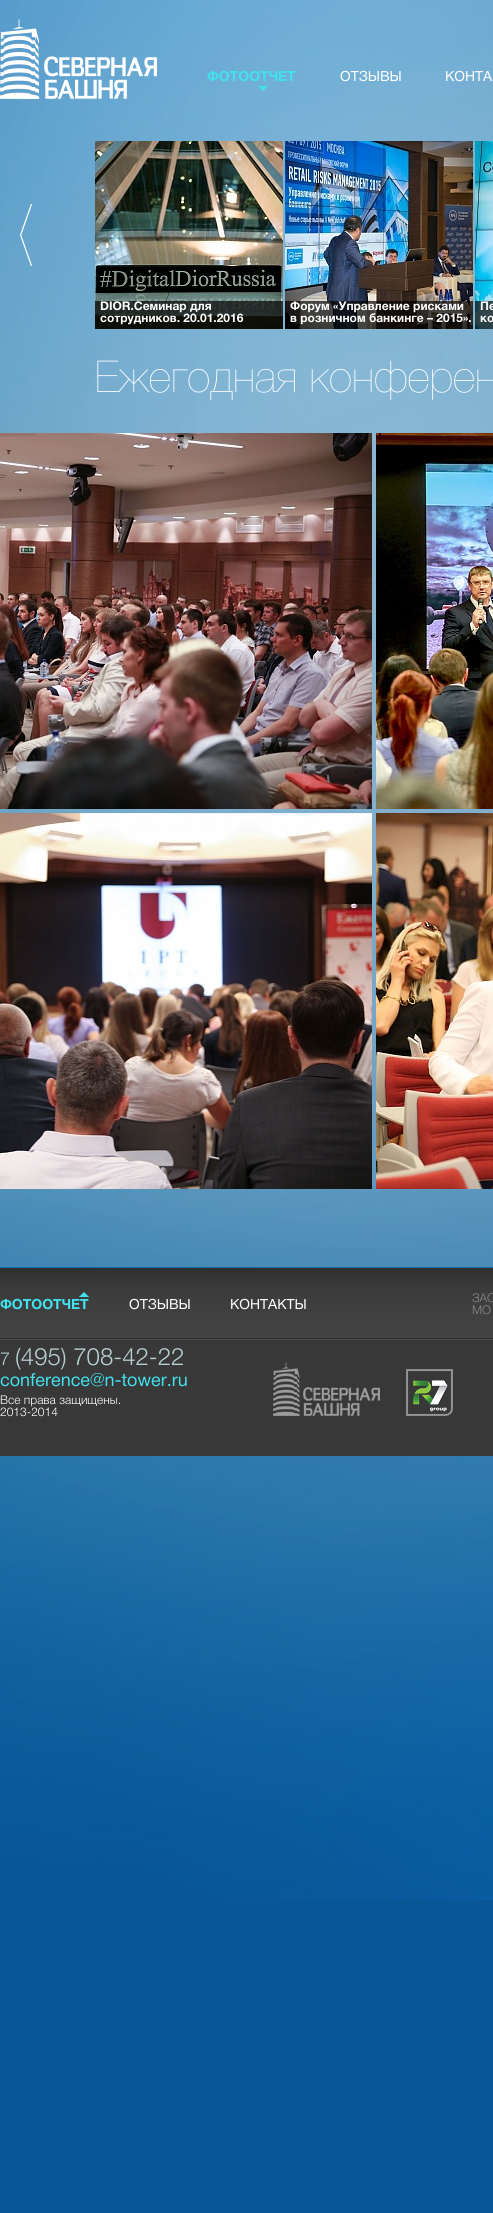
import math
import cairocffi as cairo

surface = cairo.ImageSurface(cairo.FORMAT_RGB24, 493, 2213)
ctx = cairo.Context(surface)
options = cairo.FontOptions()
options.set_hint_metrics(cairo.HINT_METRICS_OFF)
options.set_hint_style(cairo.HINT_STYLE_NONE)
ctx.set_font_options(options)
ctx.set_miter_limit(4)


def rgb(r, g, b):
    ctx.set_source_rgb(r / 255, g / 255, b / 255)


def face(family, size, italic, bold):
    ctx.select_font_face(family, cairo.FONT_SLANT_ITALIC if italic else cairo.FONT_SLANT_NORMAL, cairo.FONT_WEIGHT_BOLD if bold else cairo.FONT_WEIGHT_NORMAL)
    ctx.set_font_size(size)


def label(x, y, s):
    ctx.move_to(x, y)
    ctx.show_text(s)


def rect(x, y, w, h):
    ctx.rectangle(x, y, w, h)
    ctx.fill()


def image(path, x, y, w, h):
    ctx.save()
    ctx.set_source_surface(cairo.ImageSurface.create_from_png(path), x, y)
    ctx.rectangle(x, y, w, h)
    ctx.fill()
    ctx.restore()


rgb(8, 86, 150)
ctx.paint()
image('image0.png', 0, 0, 493, 1900)
image('image1.png', 0, 19, 157, 80)
face('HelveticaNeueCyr', 14, 0, 1)
rgb(65, 225, 237)
label(207, 81, 'ФОТООТЧЕТ')
ctx.new_path()
ctx.move_to(258, 86)
ctx.line_to(268, 86)
ctx.line_to(263, 91)
ctx.close_path()
ctx.fill()
face('HelveticaNeueCyr', 14, 0, 0)
rgb(255, 255, 255)
label(340, 81, 'ОТЗЫВЫ')
label(445, 81, 'КОНТА')
image('image2.png', 20, 204, 12, 62)
image('image3.png', 95, 141, 188, 188)
ctx.set_source_rgba(0, 0, 0, 0.69)
rect(95, 301, 188, 28)
face('HelveticaNeueCyr', 12, 0, 1)
rgb(255, 255, 255)
label(100, 310, 'DIOR.Семинар для')
label(100, 322, 'сотрудников. 20.01.2016')
image('image4.png', 285, 141, 188, 188)
ctx.set_source_rgba(0, 0, 0, 0.69)
rect(285, 301, 188, 28)
rgb(255, 255, 255)
label(290, 310, 'Форум «Управление рисками')
label(290, 322, 'в розничном банкинге – 2015».')
image('image5.png', 475, 141, 18, 188)
ctx.set_source_rgba(0, 0, 0, 0.69)
rect(475, 301, 18, 28)
rgb(255, 255, 255)
label(480, 310, 'Пе')
label(480, 322, 'ко')
face('HelveticaNeueCyr ExtraLight', 44, 0, 0)
label(95, 392, 'Ежегодная конферен')
image('image6.png', 0, 433, 372, 376)
image('image7.png', 376, 433, 117, 376)
image('image8.png', 0, 813, 372, 376)
image('image9.png', 376, 813, 117, 376)
image('image10.png', 0, 1267, 493, 189)
rgb(65, 225, 237)
ctx.new_path()
ctx.move_to(89, 1297)
ctx.line_to(79, 1297)
ctx.line_to(84, 1292)
ctx.close_path()
ctx.fill()
face('HelveticaNeueCyr', 14, 0, 1)
label(0, 1309, 'ФОТООТЧЕТ')
face('HelveticaNeueCyr', 14, 0, 0)
rgb(255, 255, 255)
label(129, 1309, 'ОТЗЫВЫ')
label(230, 1309, 'КОНТАКТЫ')
face('HelveticaNeueCyr Light', 12, 0, 0)
rgb(138, 138, 138)
label(472, 1302, 'ЗАО')
label(472, 1314, 'МО')
face('HelveticaNeueCyr Light', 18, 0, 0)
rgb(185, 208, 211)
label(0, 1365, '7')
face('HelveticaNeueCyr Light', 24, 0, 0)
label(15, 1365, '(495) 708-42-22')
face('HelveticaNeueCyr', 18, 0, 0)
rgb(65, 225, 237)
label(0, 1386, 'conference@n-tower.ru')
face('HelveticaNeueCyr Light', 12, 0, 0)
rgb(255, 255, 255)
label(0, 1404, 'Все права защищены.')
label(0, 1416, '2013-2014')
image('image11.png', 273, 1362, 107, 54)
image('image12.png', 406, 1369, 47, 47)
surface.write_to_png('render.png')
